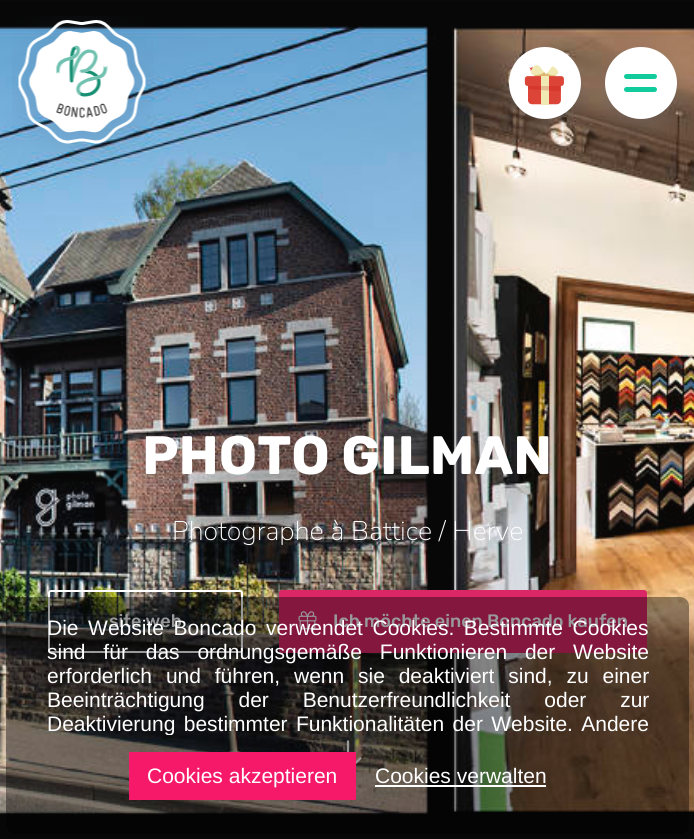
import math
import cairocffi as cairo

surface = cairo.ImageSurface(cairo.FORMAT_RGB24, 694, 839)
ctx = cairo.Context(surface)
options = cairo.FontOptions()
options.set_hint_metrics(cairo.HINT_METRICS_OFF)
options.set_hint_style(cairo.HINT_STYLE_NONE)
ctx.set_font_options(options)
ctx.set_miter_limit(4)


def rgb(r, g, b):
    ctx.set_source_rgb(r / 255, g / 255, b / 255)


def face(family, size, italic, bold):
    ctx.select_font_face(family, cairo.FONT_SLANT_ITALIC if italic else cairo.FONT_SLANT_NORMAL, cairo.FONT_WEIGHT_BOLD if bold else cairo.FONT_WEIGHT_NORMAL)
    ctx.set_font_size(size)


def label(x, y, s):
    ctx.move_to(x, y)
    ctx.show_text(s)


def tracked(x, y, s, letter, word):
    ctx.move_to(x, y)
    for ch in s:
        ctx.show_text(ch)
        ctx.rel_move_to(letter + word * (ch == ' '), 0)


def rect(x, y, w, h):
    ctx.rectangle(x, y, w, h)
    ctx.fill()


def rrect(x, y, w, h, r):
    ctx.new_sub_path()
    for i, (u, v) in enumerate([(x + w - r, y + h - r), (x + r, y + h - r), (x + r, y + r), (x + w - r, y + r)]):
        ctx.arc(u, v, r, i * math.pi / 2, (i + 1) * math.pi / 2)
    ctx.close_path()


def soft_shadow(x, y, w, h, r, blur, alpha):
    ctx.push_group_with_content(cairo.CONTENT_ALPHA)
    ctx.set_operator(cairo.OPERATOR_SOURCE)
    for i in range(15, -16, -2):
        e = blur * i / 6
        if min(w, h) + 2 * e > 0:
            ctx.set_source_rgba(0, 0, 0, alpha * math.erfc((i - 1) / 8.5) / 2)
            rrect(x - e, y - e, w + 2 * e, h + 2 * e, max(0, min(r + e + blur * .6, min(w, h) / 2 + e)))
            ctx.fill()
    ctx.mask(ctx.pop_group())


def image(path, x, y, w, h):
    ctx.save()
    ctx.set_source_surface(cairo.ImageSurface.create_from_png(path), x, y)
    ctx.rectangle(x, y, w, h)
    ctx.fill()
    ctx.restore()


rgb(255, 255, 255)
ctx.paint()
image('image2.png', 0, 0, 694, 839)
image('image0.png', 12, 16, 142, 147)
rgb(68, 104, 130)
soft_shadow(605, 54, 72, 72, 36, 9.5, 0.15)
rgb(255, 255, 255)
ctx.arc(641, 83, 36, 0, 2 * math.pi)
ctx.fill()
rgb(68, 104, 130)
soft_shadow(509, 54, 72, 72, 36, 9.5, 0.15)
rgb(255, 255, 255)
ctx.arc(545, 83, 36, 0, 2 * math.pi)
ctx.fill()
image('image1.png', 524, 65, 40, 40)
rgb(17, 203, 156)
rrect(624, 74, 33, 5, 2.5)
ctx.fill()
rrect(624, 87, 33, 5, 2.5)
ctx.fill()
face('Rubik', 54, 0, 1)
rgb(255, 255, 255)
label(142, 474, 'PHOTO GILMAN')
face('Nunito ExtraLight', 27, 0, 0)
label(172, 540, 'Photographe à Battice / Herve')
rrect(49, 591, 193, 61, 2)
ctx.stroke()
face('Rubik Medium', 18, 0, 0)
label(109, 627, 'site web')
rgb(219, 39, 102)
rrect(280, 591, 366, 61, 2)
ctx.fill_preserve()
ctx.stroke()
image('image3.png', 298, 611, 19, 19)
rgb(255, 255, 255)
label(333, 627, 'Ich möchte einen Boncado kaufen')
ctx.set_source_rgba(1, 1, 1, 0.1)
ctx.new_path()
ctx.arc(348.5, 757.5, 37.5, 0, 2 * math.pi)
ctx.fill()
image('image4.png', 346, 740, 16, 24)
ctx.set_source_rgba(0, 0, 0, 0.4)
rrect(6, 597, 683, 237, 9)
ctx.fill()
face('Liberation Sans', 21, 0, 0)
rgb(255, 255, 255)
tracked(47, 635, 'Die Website Boncado verwendet Cookies. Bestimmte Cookies', 0, 3.75)
tracked(47, 659, 'sind für das ordnungsgemäße Funktionieren der Website', 0, 12)
tracked(47, 683, 'erforderlich und führen, wenn sie deaktiviert sind, zu einer', 0, 8)
tracked(47, 707, 'Beeinträchtigung der Benutzerfreundlichkeit oder zur', 0, 28)
ctx.save()
ctx.rectangle(24, 615, 647, 120)
ctx.clip()
tracked(47, 731, 'Deaktivierung bestimmter Funktionalitäten der Website. Andere', 0, 2.5)
ctx.restore()
rgb(246, 24, 105)
rect(129, 752, 227, 48)
rgb(255, 255, 255)
label(147, 783, 'Cookies akzeptieren')
label(375, 783, 'Cookies verwalten')
rect(375, 785, 171, 2)
surface.write_to_png('render.png')
